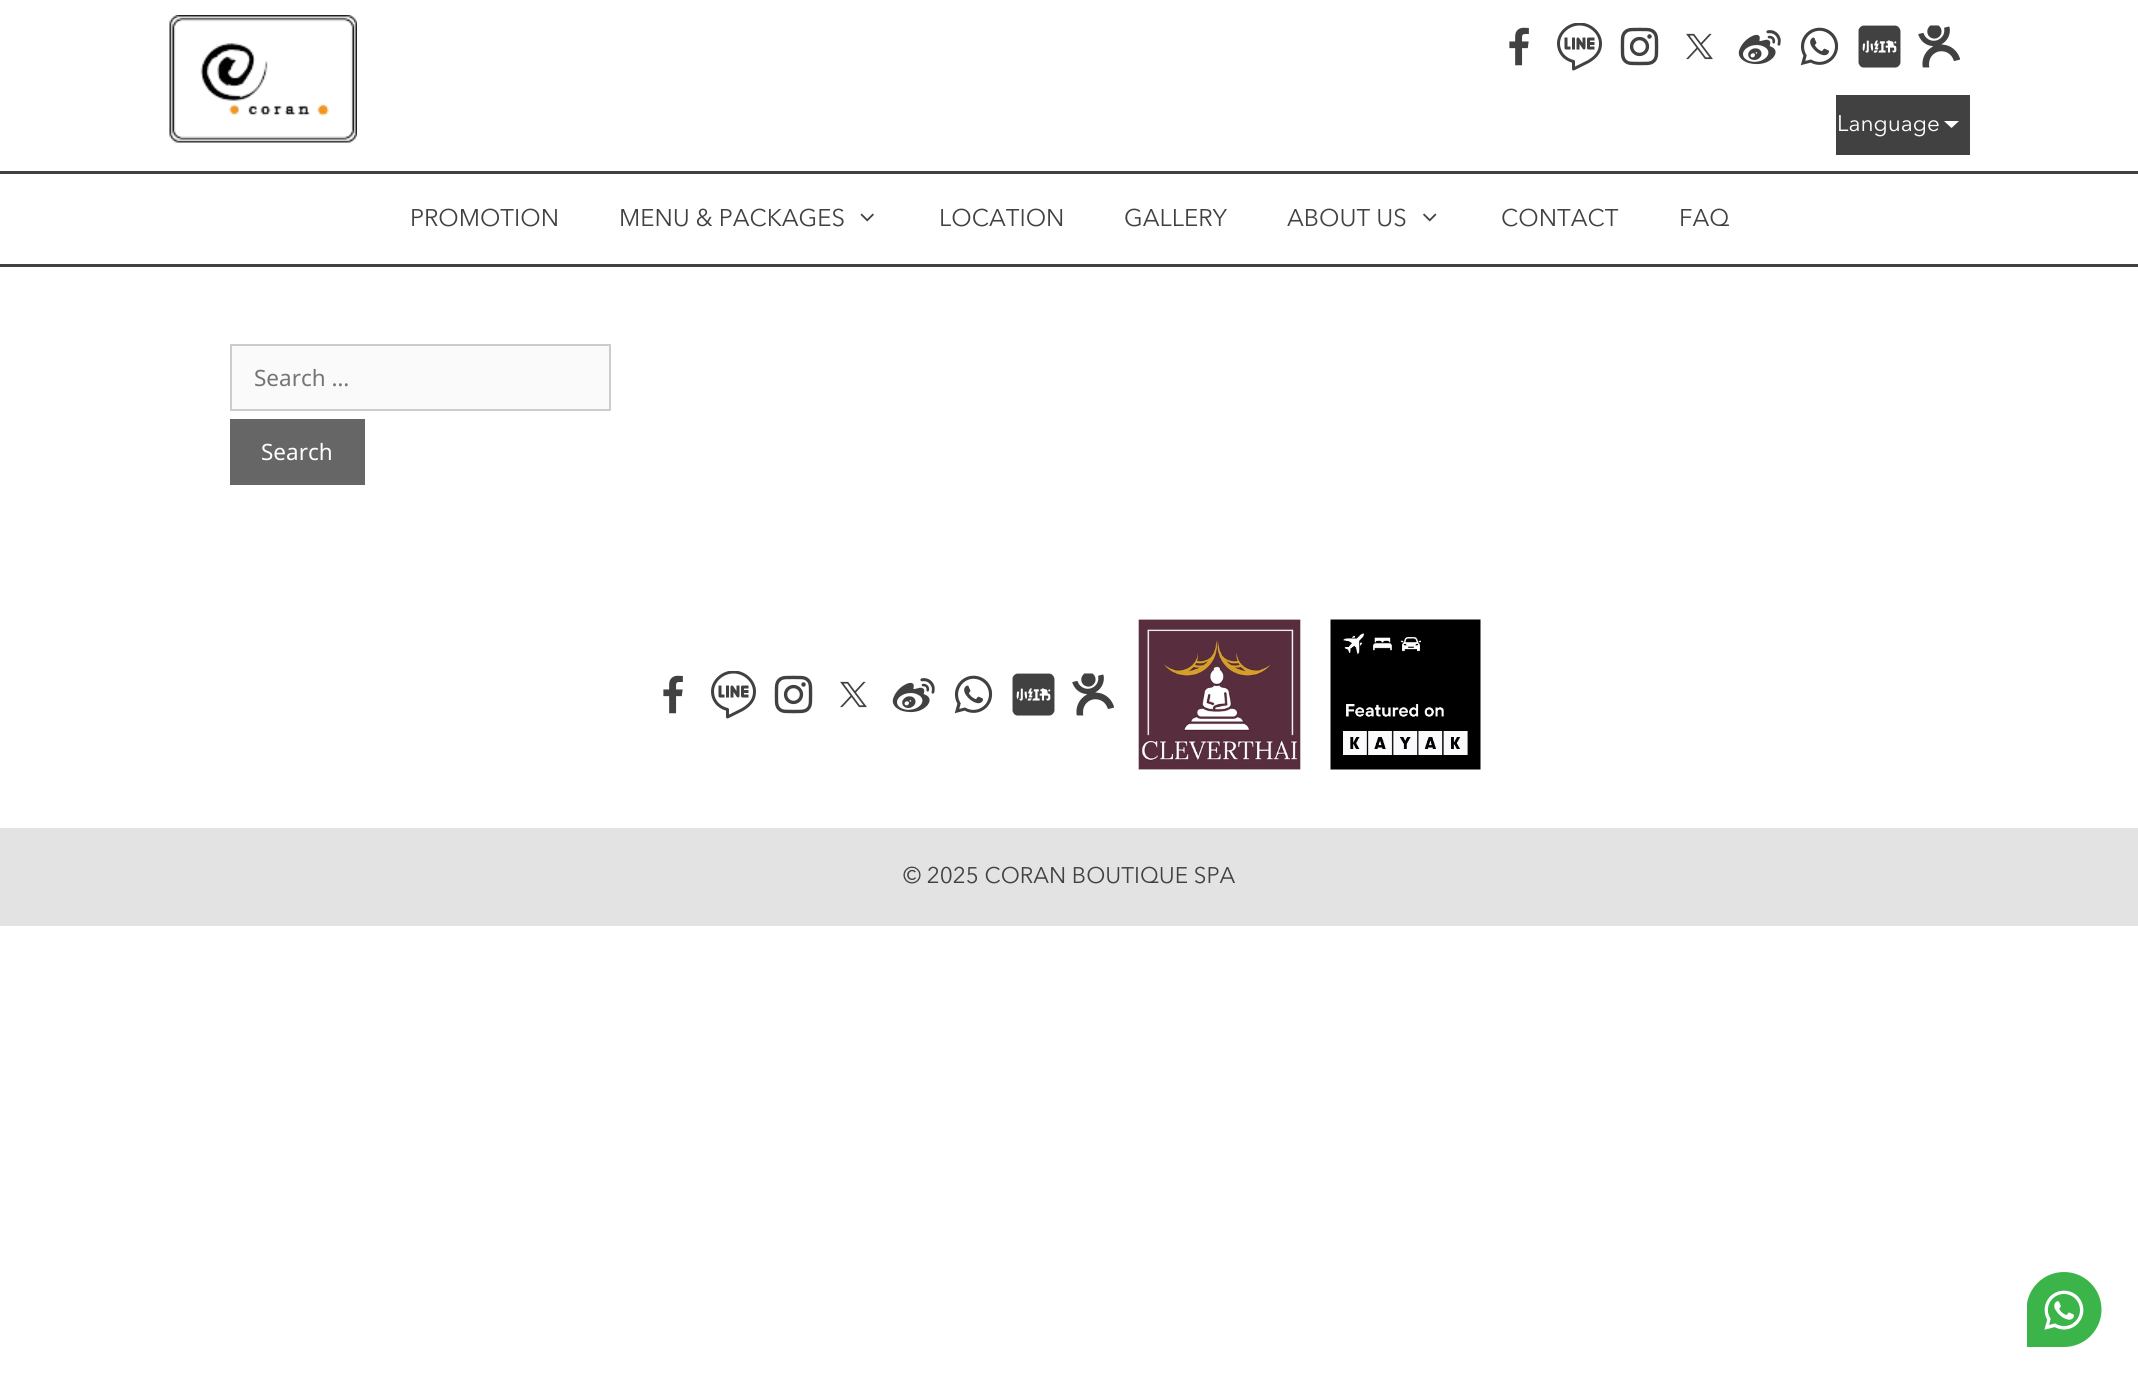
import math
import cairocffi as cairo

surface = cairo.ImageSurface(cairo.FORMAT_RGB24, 2138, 1389)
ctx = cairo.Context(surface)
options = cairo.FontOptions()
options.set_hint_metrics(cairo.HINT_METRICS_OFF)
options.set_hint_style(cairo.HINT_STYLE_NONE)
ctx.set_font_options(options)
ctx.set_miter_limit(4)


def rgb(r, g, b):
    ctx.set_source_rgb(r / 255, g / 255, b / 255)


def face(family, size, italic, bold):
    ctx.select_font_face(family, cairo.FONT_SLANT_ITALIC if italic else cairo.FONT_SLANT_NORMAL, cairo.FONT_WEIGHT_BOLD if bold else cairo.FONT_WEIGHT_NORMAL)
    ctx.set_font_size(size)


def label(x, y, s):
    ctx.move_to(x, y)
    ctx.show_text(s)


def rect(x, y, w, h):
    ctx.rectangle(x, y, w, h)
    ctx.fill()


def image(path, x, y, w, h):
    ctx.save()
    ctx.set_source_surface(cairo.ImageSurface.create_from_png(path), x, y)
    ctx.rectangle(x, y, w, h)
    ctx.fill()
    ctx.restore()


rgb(255, 255, 255)
ctx.paint()
image('image0.png', 169, 15, 188, 128)
image('image1.png', 1509, 27, 20, 39)
image('image2.png', 1557, 23, 45, 48)
image('image3.png', 1620, 27, 39, 39)
image('image4.png', 1686, 33, 27, 27)
image('image5.png', 1738, 30, 43, 35)
image('image6.png', 1800, 27, 39, 39)
image('image7.png', 1858, 25, 43, 43)
image('image8.png', 1918, 25, 43, 43)
rgb(65, 65, 65)
rect(1836, 95, 134, 60)
face('Avenir Next', 22.5, 0, 0)
rgb(255, 255, 255)
label(1837, 131, 'Language')
ctx.new_path()
ctx.move_to(1944, 121)
ctx.line_to(1959, 121)
ctx.line_to(1951.5, 128)
ctx.close_path()
ctx.fill()
rgb(65, 65, 65)
rect(0, 171, 2138, 3)
rect(0, 264, 2138, 3)
face('Avenir Next', 24, 0, 0)
label(410, 226, 'PROMOTION')
label(619, 226, 'MENU & PACKAGES')
image('image9.png', 860, 213, 14, 9)
label(939, 226, 'LOCATION')
label(1124, 226, 'GALLERY')
label(1287, 226, 'ABOUT US')
image('image10.png', 1423, 213, 14, 9)
label(1501, 226, 'CONTACT')
label(1679, 226, 'FAQ')
rgb(250, 250, 250)
ctx.rectangle(231, 345, 379, 65)
ctx.fill_preserve()
rgb(204, 204, 204)
ctx.stroke()
face('Noto Sans', 22.5, 0, 0)
rgb(117, 117, 117)
label(254, 386, 'Search …')
rgb(102, 102, 102)
rect(230, 419, 135, 66)
rgb(255, 255, 255)
label(261, 460, 'Search')
image('image1.png', 663, 675, 20, 39)
image('image2.png', 711, 671, 45, 48)
image('image3.png', 774, 675, 39, 39)
image('image4.png', 840, 681, 27, 27)
image('image5.png', 892, 678, 43, 35)
image('image6.png', 954, 675, 39, 39)
image('image7.png', 1012, 673, 43, 43)
image('image8.png', 1072, 673, 43, 43)
image('image11.png', 1138, 619, 163, 151)
image('image12.png', 1330, 619, 151, 151)
image('image13.png', 2027, 1272, 75, 75)
rgb(227, 227, 227)
rect(0, 828, 2138, 98)
face('Avenir Next', 22.5, 0, 0)
rgb(65, 65, 65)
label(903, 883, '© 2025 CORAN BOUTIQUE SPA')
surface.write_to_png('render.png')
